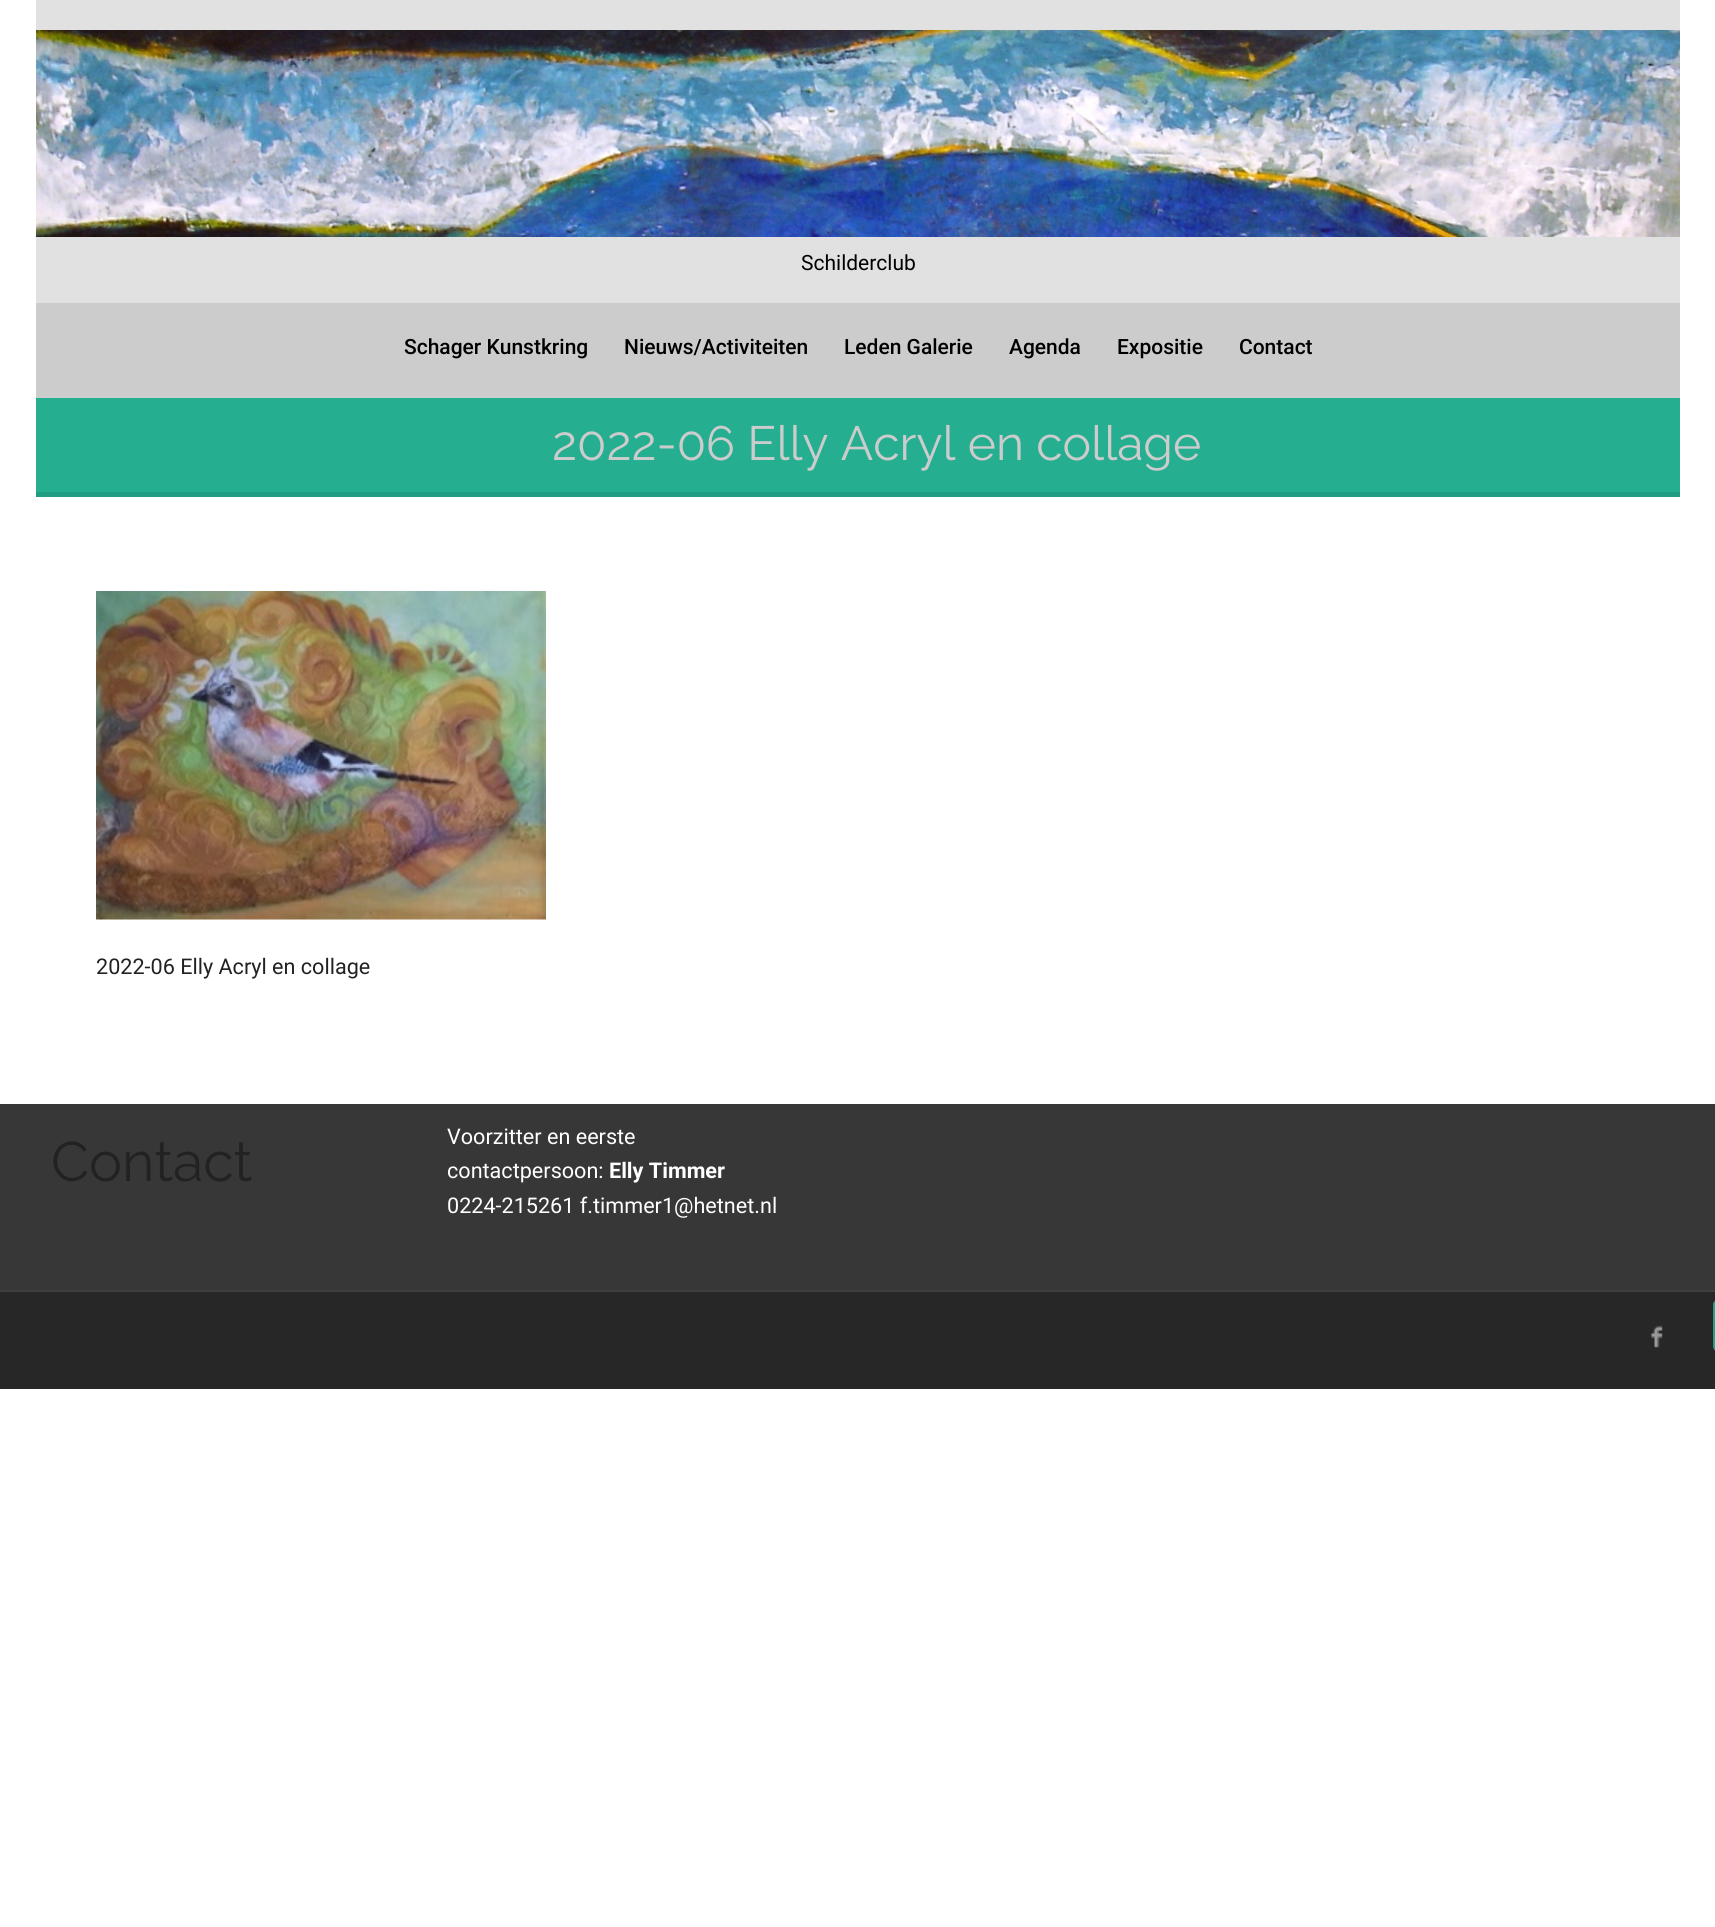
import math
import cairocffi as cairo

surface = cairo.ImageSurface(cairo.FORMAT_RGB24, 1715, 1927)
ctx = cairo.Context(surface)
options = cairo.FontOptions()
options.set_hint_metrics(cairo.HINT_METRICS_OFF)
options.set_hint_style(cairo.HINT_STYLE_NONE)
ctx.set_font_options(options)
ctx.set_miter_limit(4)


def rgb(r, g, b):
    ctx.set_source_rgb(r / 255, g / 255, b / 255)


def face(family, size, italic, bold):
    ctx.select_font_face(family, cairo.FONT_SLANT_ITALIC if italic else cairo.FONT_SLANT_NORMAL, cairo.FONT_WEIGHT_BOLD if bold else cairo.FONT_WEIGHT_NORMAL)
    ctx.set_font_size(size)


def label(x, y, s):
    ctx.move_to(x, y)
    ctx.show_text(s)


def rect(x, y, w, h):
    ctx.rectangle(x, y, w, h)
    ctx.fill()


def rrect(x, y, w, h, r):
    ctx.new_sub_path()
    for i, (u, v) in enumerate([(x + w - r, y + h - r), (x + r, y + h - r), (x + r, y + r), (x + w - r, y + r)]):
        ctx.arc(u, v, r, i * math.pi / 2, (i + 1) * math.pi / 2)
    ctx.close_path()


def image(path, x, y, w, h):
    ctx.save()
    ctx.set_source_surface(cairo.ImageSurface.create_from_png(path), x, y)
    ctx.rectangle(x, y, w, h)
    ctx.fill()
    ctx.restore()


rgb(255, 255, 255)
ctx.paint()
rgb(225, 225, 225)
rect(36, 0, 1644, 303)
image('image0.png', 36, 30, 1644, 207)
face('Roboto', 21, 0, 0)
rgb(0, 0, 0)
label(801, 270, 'Schilderclub')
rgb(204, 204, 204)
rect(36, 303, 1644, 95)
face('Roboto Medium', 21, 0, 0)
rgb(0, 0, 0)
label(404, 354, 'Schager Kunstkring')
label(624, 354, 'Nieuws/Activiteiten')
label(844, 354, 'Leden Galerie')
label(1009, 354, 'Agenda')
label(1117, 354, 'Expositie')
label(1239, 354, 'Contact')
rgb(38, 174, 144)
rect(36, 398, 1644, 94)
rgb(34, 157, 130)
rect(36, 492, 1644, 5)
face('Raleway Thin', 48, 0, 0)
rgb(204, 204, 204)
label(552, 460, '2022-06 Elly Acryl en collage')
image('image1.png', 96, 591, 450, 329)
face('Roboto', 21.6, 0, 0)
rgb(34, 34, 34)
label(96, 974, '2022-06 Elly Acryl en collage')
rgb(55, 55, 55)
rect(0, 1104, 1715, 186)
rgb(63, 63, 63)
rect(0, 1290, 1715, 2)
face('Raleway Thin', 55.5, 0, 0)
rgb(34, 34, 34)
label(51, 1181, 'Contact')
face('Roboto', 21.6, 0, 0)
rgb(255, 255, 255)
label(447, 1144, 'Voorzitter en eerste')
label(447, 1178, 'contactpersoon:')
face('Roboto', 21.6, 0, 1)
label(609, 1178, 'Elly Timmer')
face('Roboto', 21.6, 0, 0)
label(447, 1213, '0224-215261 f.timmer1@hetnet.nl')
rgb(39, 39, 39)
rect(0, 1292, 1715, 97)
image('image2.png', 1650, 1325, 13, 23)
rgb(38, 174, 144)
rrect(1713, 1299, 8, 53, 6)
ctx.fill()
ctx.new_path()
ctx.move_to(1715.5, 1349)
ctx.curve_to(1712.5, 1346.5, 1714, 1341.5, 1714, 1339)
ctx.line_to(1714, 1325)
ctx.curve_to(1714, 1295.5, 1709.5, 1300, 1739, 1300)
ctx.curve_to(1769, 1300, 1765, 1295.5, 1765, 1325)
ctx.line_to(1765, 1339)
ctx.curve_to(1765, 1341.5, 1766, 1346.5, 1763, 1349)
ctx.set_source_rgba(0, 0, 0, 0.1)
ctx.set_line_width(1.5)
ctx.stroke()
surface.write_to_png('render.png')
